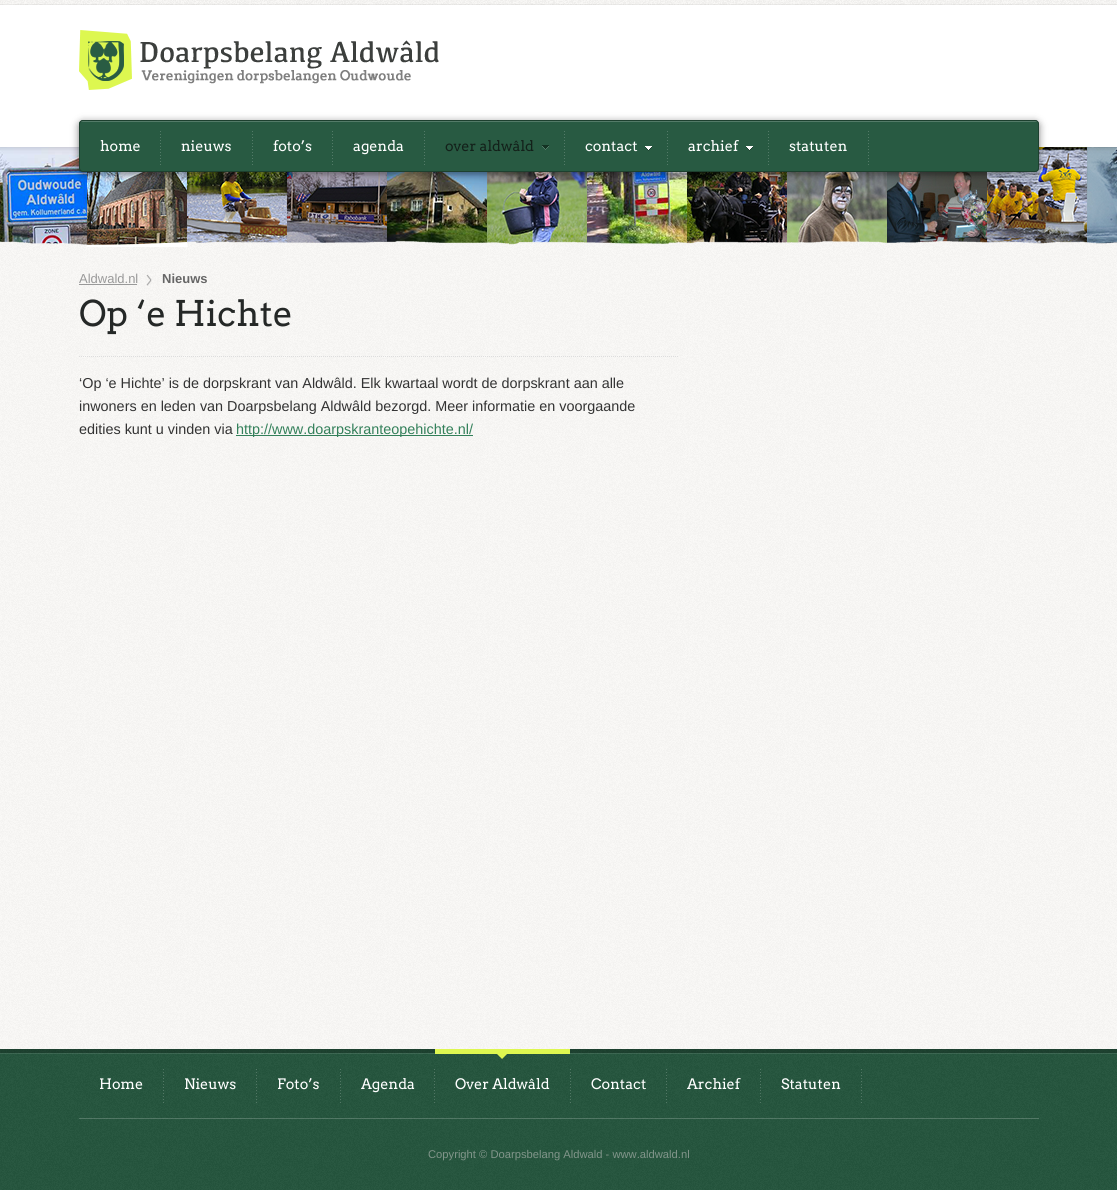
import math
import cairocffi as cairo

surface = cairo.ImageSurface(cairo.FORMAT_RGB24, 1117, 1190)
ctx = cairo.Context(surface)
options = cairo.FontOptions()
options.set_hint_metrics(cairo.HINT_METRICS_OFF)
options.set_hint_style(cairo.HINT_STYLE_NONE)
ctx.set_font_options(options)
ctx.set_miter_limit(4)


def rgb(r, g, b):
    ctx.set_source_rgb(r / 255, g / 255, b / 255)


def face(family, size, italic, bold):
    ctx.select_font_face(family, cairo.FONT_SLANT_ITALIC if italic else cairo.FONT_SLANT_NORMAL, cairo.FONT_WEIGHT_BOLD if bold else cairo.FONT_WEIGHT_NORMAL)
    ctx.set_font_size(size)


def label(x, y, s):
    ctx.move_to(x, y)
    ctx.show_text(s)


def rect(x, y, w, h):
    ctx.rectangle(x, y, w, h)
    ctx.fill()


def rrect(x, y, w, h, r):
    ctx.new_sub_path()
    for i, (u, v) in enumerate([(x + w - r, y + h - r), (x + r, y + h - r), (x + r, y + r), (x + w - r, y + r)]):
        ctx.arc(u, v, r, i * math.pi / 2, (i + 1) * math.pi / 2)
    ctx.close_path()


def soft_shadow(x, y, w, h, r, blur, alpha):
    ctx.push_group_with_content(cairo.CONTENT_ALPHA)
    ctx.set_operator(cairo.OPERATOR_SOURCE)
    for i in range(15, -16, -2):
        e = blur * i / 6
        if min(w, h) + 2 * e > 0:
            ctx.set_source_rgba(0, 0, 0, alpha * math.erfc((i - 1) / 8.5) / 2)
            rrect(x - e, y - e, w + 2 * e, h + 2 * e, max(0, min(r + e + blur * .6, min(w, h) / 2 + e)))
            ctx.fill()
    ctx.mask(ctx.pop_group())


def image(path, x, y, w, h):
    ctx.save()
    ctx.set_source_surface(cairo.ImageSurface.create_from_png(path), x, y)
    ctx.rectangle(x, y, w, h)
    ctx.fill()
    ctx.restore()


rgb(255, 255, 255)
ctx.paint()
image('image0.png', 0, 247, 1117, 802)
image('image1.png', 0, 0, 1117, 247)
image('image2.png', 79, 30, 360, 60)
rgb(0, 0, 0)
soft_shadow(79, 122, 960, 52, 4, 4, 0.5)
rgb(40, 90, 66)
rrect(79, 120, 960, 52, 4)
ctx.fill()
ctx.set_source_rgba(1, 1, 1, 0.2)
rect(80, 121, 958, 1)
rrect(79.5, 120.5, 959, 51, 3.5)
rgb(29, 64, 47)
ctx.set_line_width(1)
ctx.stroke()
image('image3.png', 160, 131, 1, 34)
face('Arvo', 14.4, 0, 0)
rgb(255, 255, 255)
label(100, 151, 'home')
image('image3.png', 252, 131, 1, 34)
label(181, 151, 'nieuws')
image('image3.png', 332, 131, 1, 34)
label(273, 151, 'foto’s')
image('image3.png', 424, 131, 1, 34)
label(353, 151, 'agenda')
image('image3.png', 564, 131, 1, 34)
image('image4.png', 542, 145, 7, 5)
rgb(19, 33, 26)
label(445, 151, 'over aldwâld')
image('image3.png', 667, 131, 1, 34)
image('image5.png', 645, 146, 7, 5)
rgb(255, 255, 255)
label(585, 151, 'contact')
image('image3.png', 768, 131, 1, 34)
image('image5.png', 746, 146, 7, 5)
label(688, 151, 'archief')
image('image3.png', 868, 131, 1, 34)
label(789, 151, 'statuten')
ctx.new_path()
ctx.move_to(79, 356.5)
ctx.line_to(679, 356.5)
rgb(221, 221, 221)
ctx.set_dash([1, 1])
ctx.stroke()
image('image6.png', 146, 274, 6, 12)
face('Liberation Sans', 13, 0, 0)
rgb(153, 153, 153)
label(79, 283, 'Aldwald.nl')
rect(79, 284, 58, 1)
face('Liberation Sans', 13, 0, 1)
rgb(102, 102, 102)
label(162, 283, 'Nieuws')
face('Arvo', 35.25, 0, 0)
rgb(37, 40, 39)
label(79, 326, 'Op ‘e Hichte')
face('Liberation Sans', 14.4, 0, 0)
rgb(51, 51, 51)
label(79, 388, '‘Op ‘e Hichte’ is de dorpskrant van Aldwâld. Elk kwartaal wordt de dorpskrant aan alle')
label(79, 411, 'inwoners en leden van Doarpsbelang Aldwâld bezorgd. Meer informatie en voorgaande')
label(79, 434, 'edities kunt u vinden via')
rgb(51, 128, 90)
rect(236, 435, 237, 1)
label(236, 434, 'http://www.doarpskranteopehichte.nl/')
image('image7.png', 0, 1049, 1117, 141)
ctx.set_source_rgba(1, 1, 1, 0.2)
rect(79, 1118, 960, 1)
image('image8.png', 163, 1069, 1, 34)
face('Arvo', 14.4, 0, 0)
rgb(255, 255, 255)
label(99, 1089, 'Home')
image('image9.png', 256, 1069, 1, 34)
label(184, 1089, 'Nieuws')
image('image10.png', 340, 1069, 1, 34)
label(277, 1089, 'Foto’s')
image('image11.png', 434, 1069, 1, 34)
label(361, 1089, 'Agenda')
image('image12.png', 570, 1069, 1, 34)
image('image13.png', 435, 1049, 135, 10)
label(455, 1089, 'Over Aldwâld')
image('image14.png', 666, 1069, 1, 34)
label(591, 1089, 'Contact')
image('image15.png', 760, 1069, 1, 34)
label(687, 1089, 'Archief')
image('image16.png', 861, 1069, 1, 34)
label(781, 1089, 'Statuten')
face('Liberation Sans', 11.2, 0, 0)
rgb(129, 149, 138)
label(428, 1158, 'Copyright © Doarpsbelang Aldwald - www.aldwald.nl')
surface.write_to_png('render.png')
